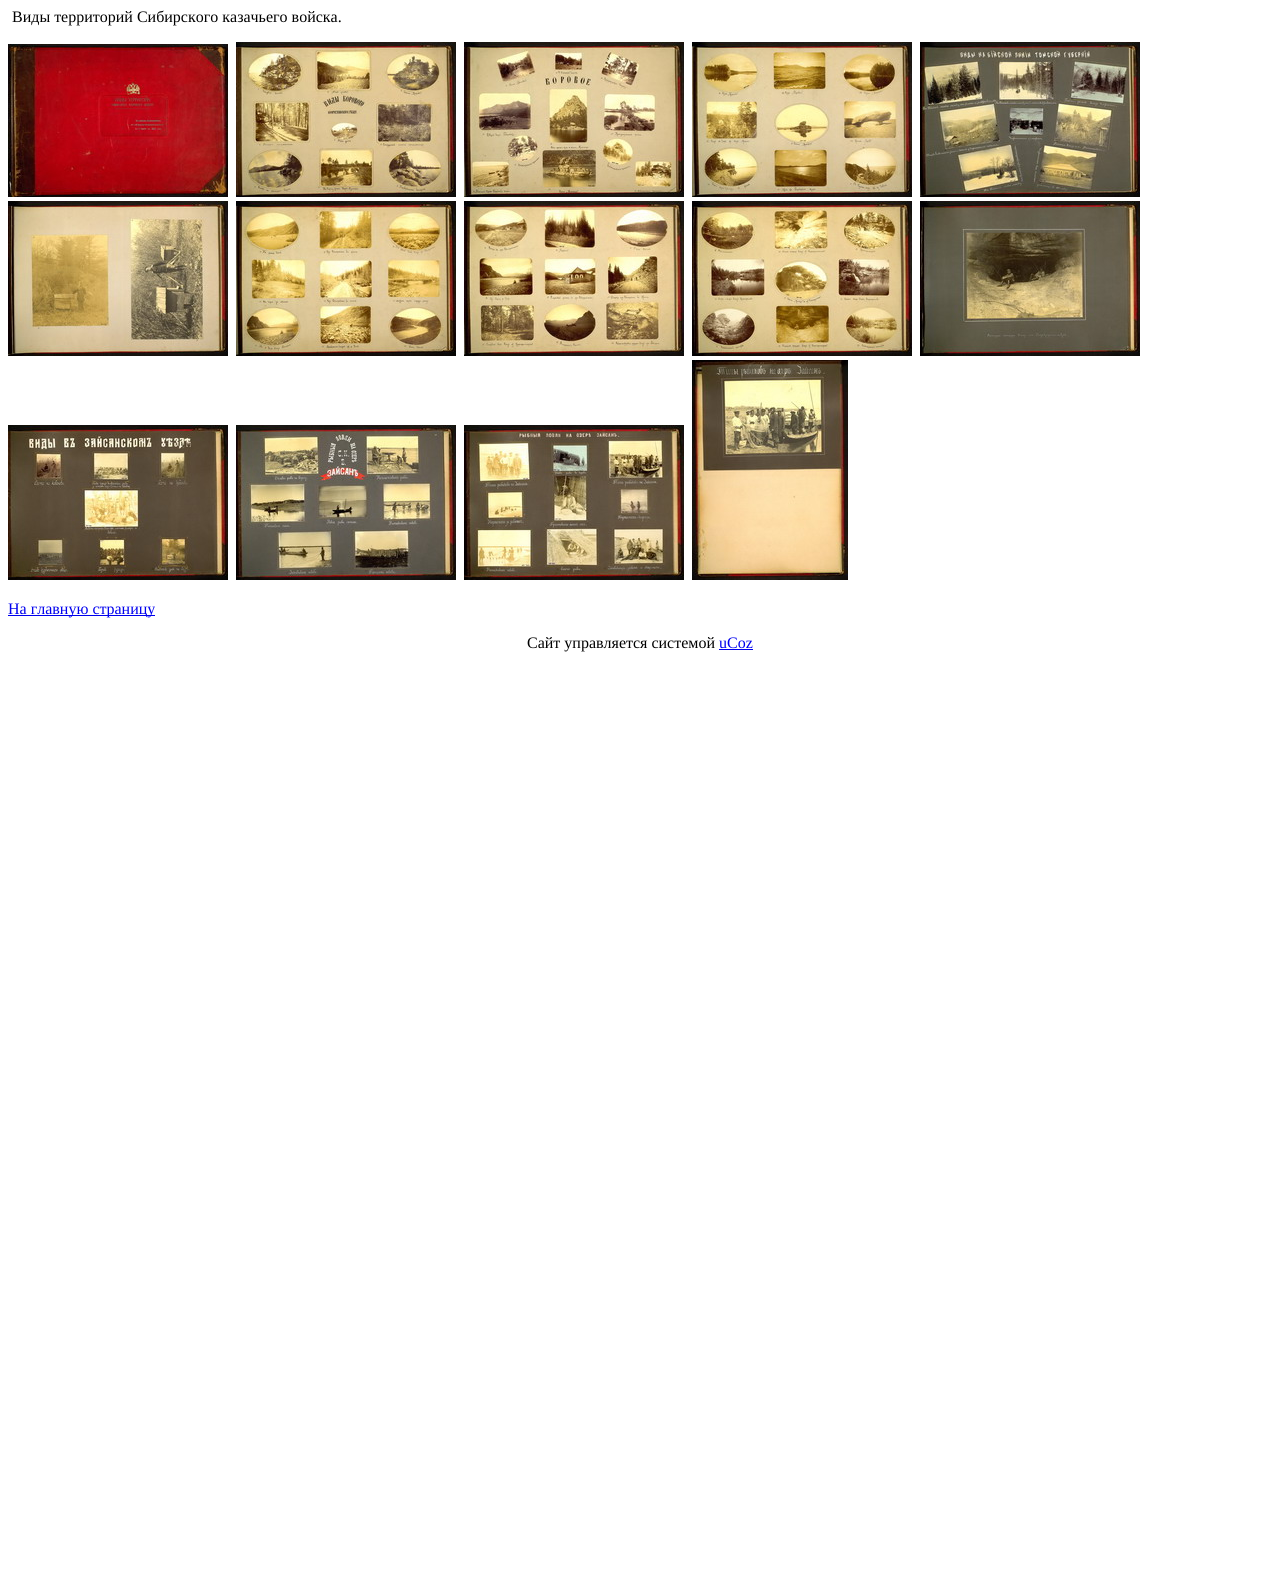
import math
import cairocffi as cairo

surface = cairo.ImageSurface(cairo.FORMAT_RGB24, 1280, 1585)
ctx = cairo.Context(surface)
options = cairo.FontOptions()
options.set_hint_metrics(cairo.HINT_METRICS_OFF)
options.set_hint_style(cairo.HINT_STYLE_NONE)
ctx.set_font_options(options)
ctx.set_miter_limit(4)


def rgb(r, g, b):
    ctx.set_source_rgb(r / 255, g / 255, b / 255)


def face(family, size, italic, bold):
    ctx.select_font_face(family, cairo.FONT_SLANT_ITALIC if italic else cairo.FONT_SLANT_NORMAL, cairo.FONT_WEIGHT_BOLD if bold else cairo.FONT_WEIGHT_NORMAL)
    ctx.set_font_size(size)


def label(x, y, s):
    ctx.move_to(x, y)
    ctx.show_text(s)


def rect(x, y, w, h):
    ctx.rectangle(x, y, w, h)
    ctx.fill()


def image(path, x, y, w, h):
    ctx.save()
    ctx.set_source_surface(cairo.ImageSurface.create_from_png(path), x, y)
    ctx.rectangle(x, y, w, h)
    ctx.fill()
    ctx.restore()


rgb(255, 255, 255)
ctx.paint()
face('Liberation Serif', 16, 0, 0)
rgb(0, 0, 0)
label(12, 22, 'Виды территорий Сибирского казачьего войска.')
image('image0.png', 8, 44, 220, 153)
image('image1.png', 236, 42, 220, 155)
image('image2.png', 464, 42, 220, 155)
image('image3.png', 692, 42, 220, 155)
image('image4.png', 920, 42, 220, 155)
image('image5.png', 8, 201, 220, 155)
image('image6.png', 236, 201, 220, 155)
image('image7.png', 464, 201, 220, 155)
image('image8.png', 692, 201, 220, 155)
image('image9.png', 920, 201, 220, 155)
image('image10.png', 8, 425, 220, 155)
image('image11.png', 236, 425, 220, 155)
image('image12.png', 464, 425, 220, 155)
image('image13.png', 692, 360, 156, 220)
rgb(0, 0, 238)
rect(8, 615, 147, 1)
label(8, 614, 'На главную страницу')
rgb(0, 0, 0)
label(527, 648, 'Сайт управляется системой')
rgb(0, 0, 238)
label(719, 648, 'uCoz')
rect(719, 649, 34, 1)
surface.write_to_png('render.png')
